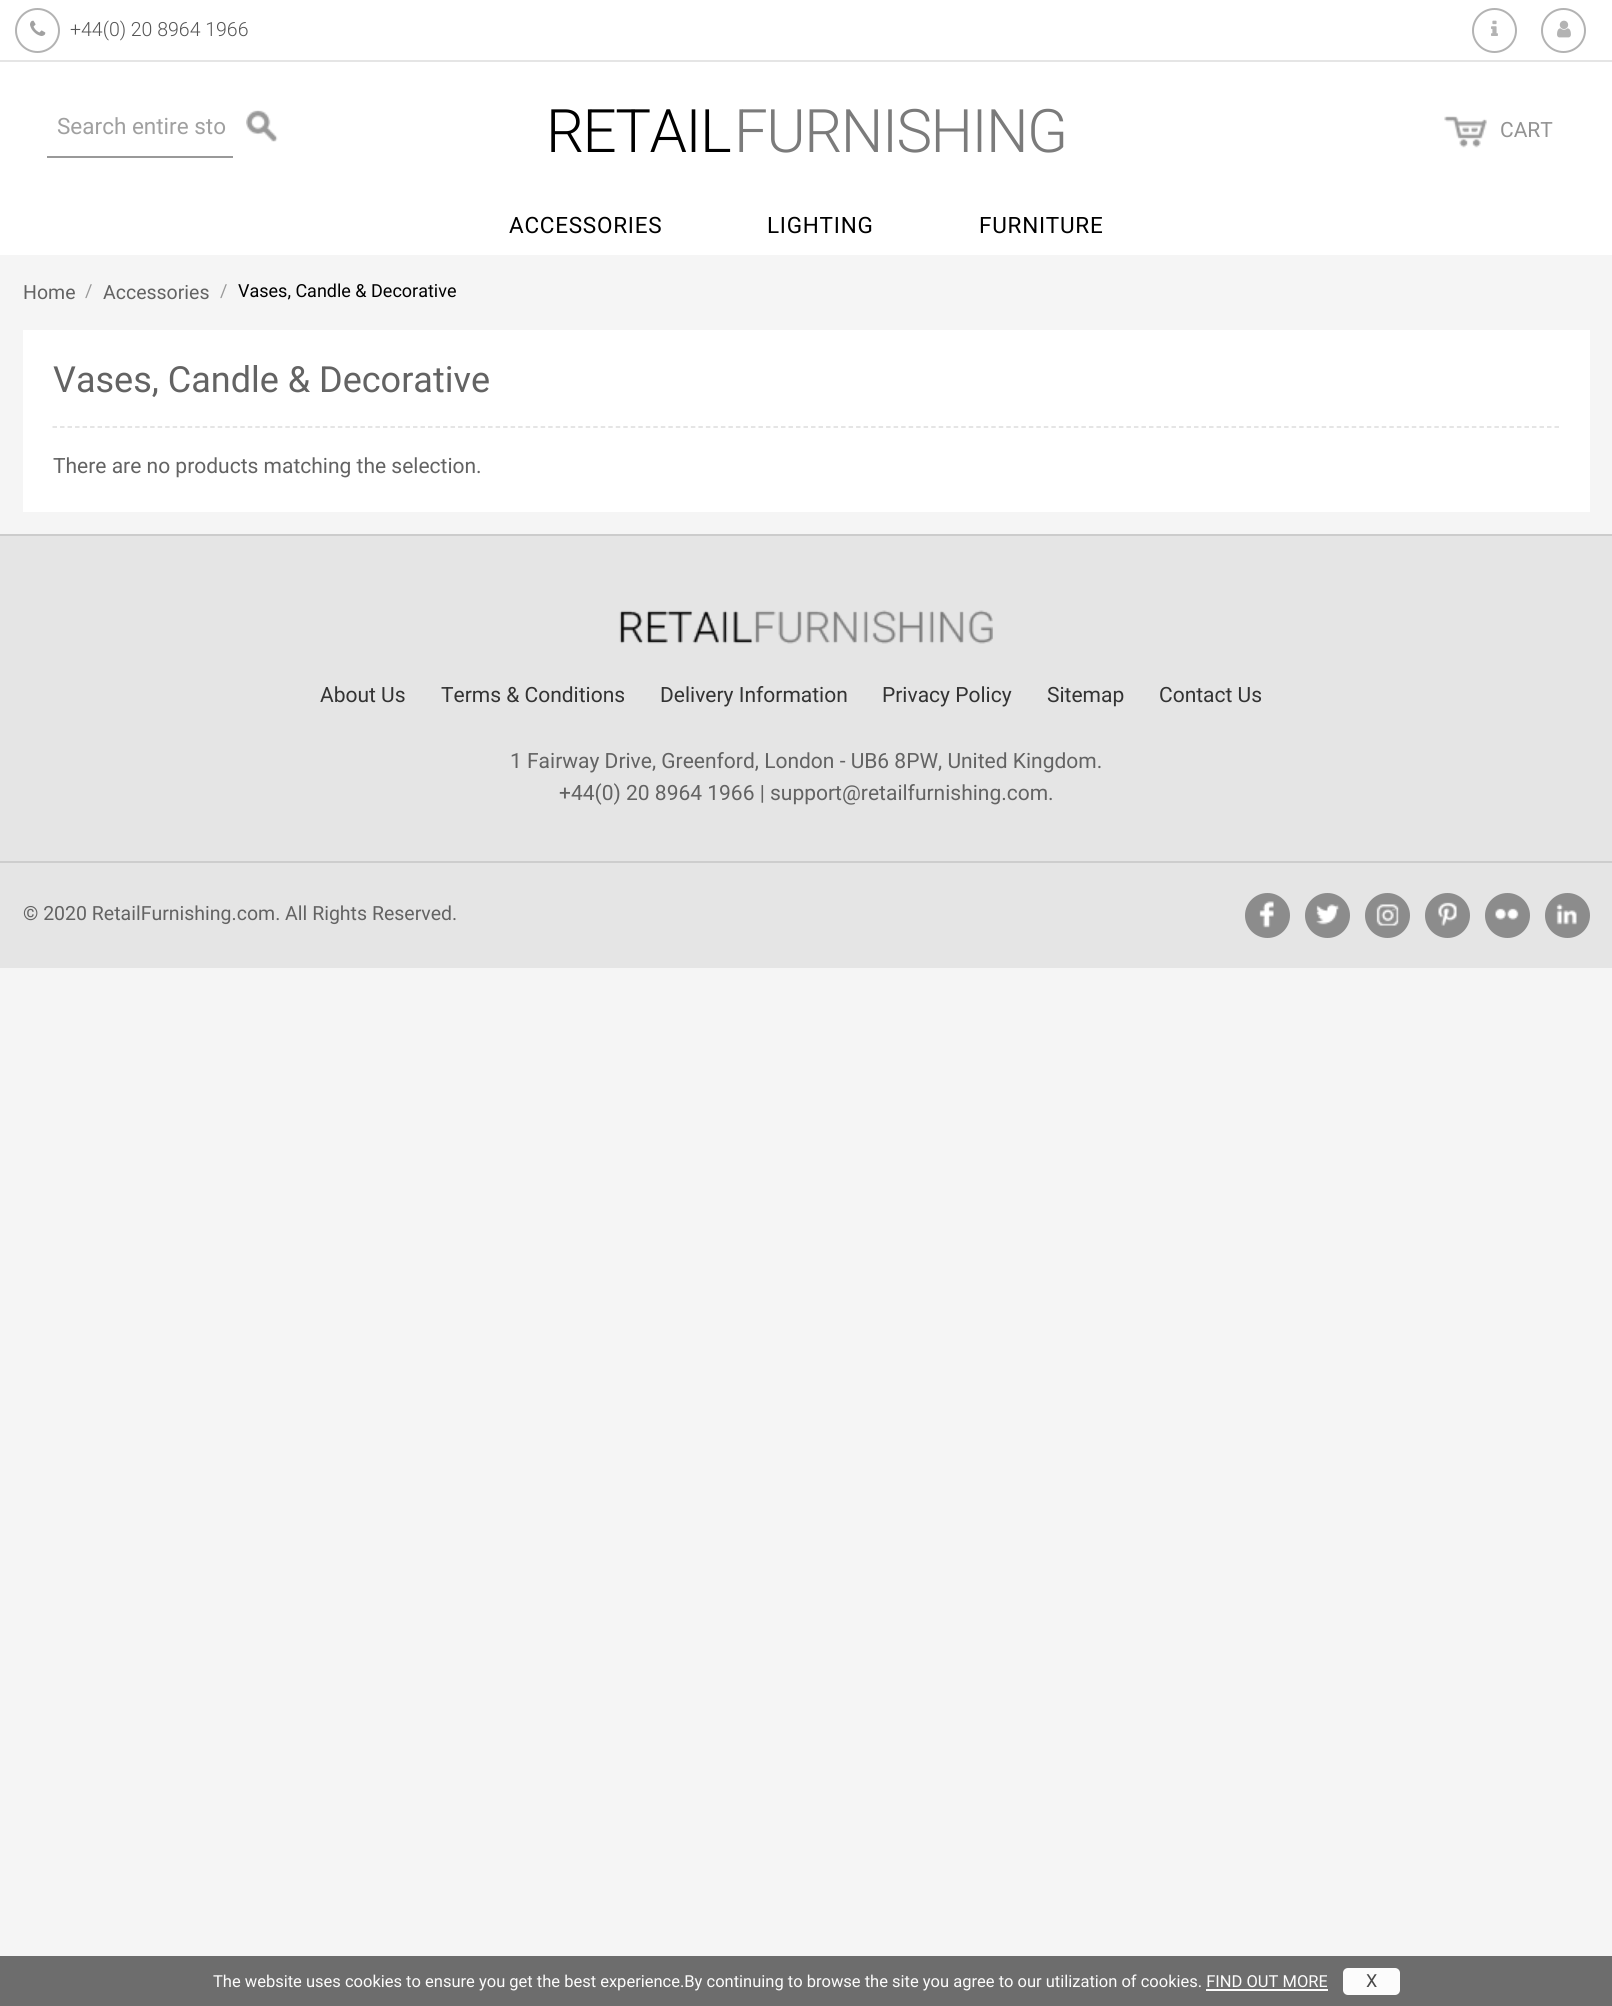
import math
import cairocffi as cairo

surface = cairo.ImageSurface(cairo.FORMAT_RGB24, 1612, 2006)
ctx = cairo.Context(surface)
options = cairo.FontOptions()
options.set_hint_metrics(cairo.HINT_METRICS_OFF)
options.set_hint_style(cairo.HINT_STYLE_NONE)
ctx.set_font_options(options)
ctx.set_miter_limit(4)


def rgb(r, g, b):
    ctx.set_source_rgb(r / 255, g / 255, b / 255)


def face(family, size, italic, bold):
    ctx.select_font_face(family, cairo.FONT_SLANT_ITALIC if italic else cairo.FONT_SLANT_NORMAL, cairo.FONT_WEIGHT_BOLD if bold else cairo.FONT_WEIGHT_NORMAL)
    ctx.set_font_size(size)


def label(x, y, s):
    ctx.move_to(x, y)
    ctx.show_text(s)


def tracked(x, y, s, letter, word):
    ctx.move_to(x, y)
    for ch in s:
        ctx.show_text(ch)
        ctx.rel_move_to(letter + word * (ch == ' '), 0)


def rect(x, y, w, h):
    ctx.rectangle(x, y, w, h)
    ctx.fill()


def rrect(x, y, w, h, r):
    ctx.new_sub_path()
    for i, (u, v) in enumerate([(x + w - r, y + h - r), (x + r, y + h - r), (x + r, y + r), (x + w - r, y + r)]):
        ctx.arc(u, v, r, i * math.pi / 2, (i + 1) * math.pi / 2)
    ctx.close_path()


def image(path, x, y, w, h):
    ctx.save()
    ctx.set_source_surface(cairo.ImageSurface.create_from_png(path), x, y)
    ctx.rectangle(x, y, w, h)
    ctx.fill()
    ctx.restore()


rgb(245, 245, 245)
ctx.paint()
rgb(255, 255, 255)
rect(0, 0, 1612, 255)
rgb(229, 229, 229)
rect(0, 60, 1612, 2)
ctx.arc(37.5, 30.5, 21.5, 0, 2 * math.pi)
rgb(179, 179, 179)
ctx.stroke()
image('image0.png', 30, 20, 16, 16)
face('Roboto Light', 19.5, 0, 0)
rgb(85, 85, 85)
label(70, 36, '+44(0) 20 8964 1966')
ctx.new_path()
ctx.arc(1494.5, 30.5, 21.5, 0, 2 * math.pi)
rgb(179, 179, 179)
ctx.stroke()
image('image1.png', 1491, 20, 7, 16)
ctx.arc(1563.5, 30.5, 21.5, 0, 2 * math.pi)
ctx.stroke()
image('image2.png', 1557, 20, 14, 18)
rgb(153, 153, 153)
rect(47, 156, 186, 2)
face('Roboto', 22.5, 0, 0)
rgb(160, 160, 160)
label(57, 134, 'Search entire sto')
image('image3.png', 246, 110, 32, 32)
face('Roboto Light', 60, 0, 0)
rgb(0, 0, 0)
tracked(546, 152, 'RETAIL', -1.5, 0)
rgb(123, 123, 123)
tracked(734, 152, 'FURNISHING', -1.5, 0)
image('image4.png', 1444, 116, 43, 32)
face('Roboto', 21, 0, 0)
rgb(147, 147, 147)
label(1500, 137, 'CART')
face('Roboto', 22.5, 0, 0)
rgb(0, 0, 0)
tracked(509, 233, 'ACCESSORIES', 0.75, 0)
tracked(767, 233, 'LIGHTING', 0.75, 0)
tracked(979, 233, 'FURNITURE', 0.75, 0)
face('Roboto', 19.5, 0, 0)
rgb(99, 99, 99)
label(23, 299, 'Home')
face('Roboto', 18, 0, 0)
rgb(153, 153, 153)
label(85, 297, '/')
face('Roboto', 19.5, 0, 0)
rgb(99, 99, 99)
label(103, 299, 'Accessories')
face('Roboto', 18, 0, 0)
rgb(153, 153, 153)
label(220, 297, '/')
rgb(0, 0, 0)
label(238, 297, 'Vases, Candle & Decorative')
rgb(255, 255, 255)
rect(23, 330, 1567, 182)
ctx.new_path()
ctx.move_to(52.5, 427)
ctx.line_to(1560, 427)
rgb(221, 221, 221)
ctx.set_line_width(1.5)
ctx.set_dash([4.5, 3.01])
ctx.stroke()
face('Roboto', 36, 0, 0)
rgb(99, 99, 99)
label(53, 392, 'Vases, Candle & Decorative')
face('Roboto', 21, 0, 0)
label(53, 473, 'There are no products matching the selection.')
rgb(229, 229, 229)
rect(0, 536, 1612, 432)
rgb(204, 204, 204)
rect(0, 534, 1612, 2)
image('image5.png', 619, 610, 374, 34)
rgb(51, 51, 51)
label(320, 702, 'About Us')
label(441, 702, 'Terms & Conditions')
label(660, 702, 'Delivery Information')
label(882, 702, 'Privacy Policy')
label(1047, 702, 'Sitemap')
label(1159, 702, 'Contact Us')
rgb(99, 99, 99)
label(510, 768, '1 Fairway Drive, Greenford, London - UB6 8PW, United Kingdom.')
label(559, 800, '+44(0) 20 8964 1966 | support@retailfurnishing.com.')
rgb(205, 205, 205)
rect(0, 861, 1612, 2)
face('Roboto', 19.5, 0, 0)
rgb(99, 99, 99)
label(23, 920, '© 2020 RetailFurnishing.com. All Rights Reserved.')
rgb(140, 140, 140)
ctx.new_path()
ctx.arc(1267.5, 915.5, 22.5, 0, 2 * math.pi)
ctx.fill()
image('image6.png', 1259, 901, 15, 27)
ctx.arc(1327.5, 915.5, 22.5, 0, 2 * math.pi)
ctx.fill()
image('image7.png', 1316, 904, 24, 21)
ctx.arc(1387.5, 915.5, 22.5, 0, 2 * math.pi)
ctx.fill()
image('image8.png', 1376, 904, 23, 22)
ctx.arc(1447.5, 915.5, 22.5, 0, 2 * math.pi)
ctx.fill()
image('image9.png', 1438, 902, 19, 24)
ctx.arc(1507.5, 915.5, 22.5, 0, 2 * math.pi)
ctx.fill()
image('image10.png', 1495, 908, 24, 12)
ctx.arc(1567.5, 915.5, 22.5, 0, 2 * math.pi)
ctx.fill()
image('image11.png', 1556, 904, 21, 21)
rgb(109, 109, 109)
rect(0, 1956, 1612, 50)
face('Roboto', 16.5, 0, 0)
rgb(252, 252, 252)
label(213, 1987, 'The website uses cookies to ensure you get the best experience.By continuing to browse the site you agree to our utilization of cookies. FIND OUT MORE')
rrect(1343, 1968, 57, 27, 5)
ctx.fill()
face('Roboto', 18, 0, 0)
rgb(74, 74, 74)
label(1366, 1987, 'X')
rgb(252, 252, 252)
rect(1206, 1989, 122, 2)
surface.write_to_png('render.png')
